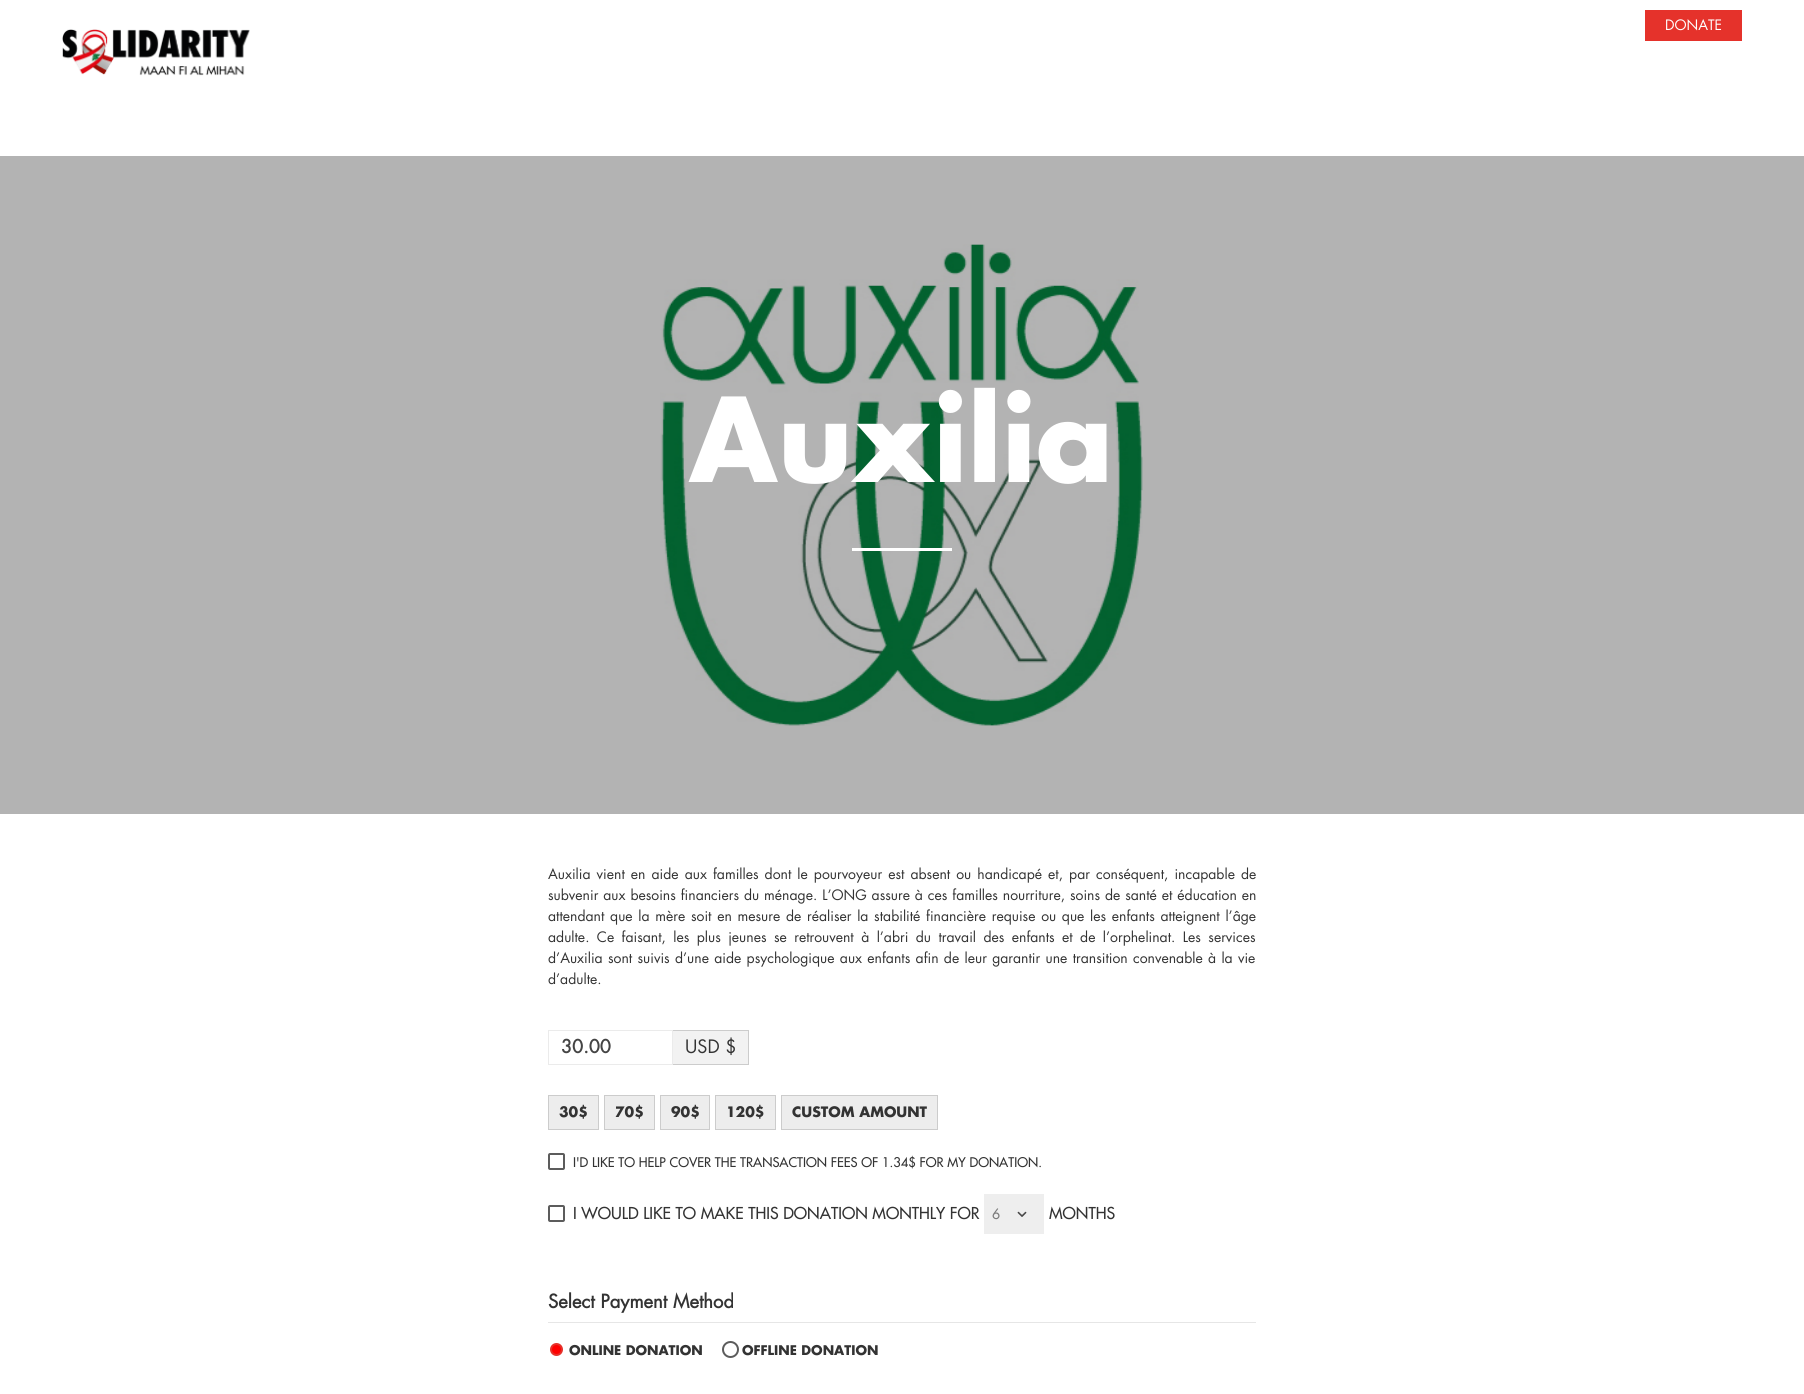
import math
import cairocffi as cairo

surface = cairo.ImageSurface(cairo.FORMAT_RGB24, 1804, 1394)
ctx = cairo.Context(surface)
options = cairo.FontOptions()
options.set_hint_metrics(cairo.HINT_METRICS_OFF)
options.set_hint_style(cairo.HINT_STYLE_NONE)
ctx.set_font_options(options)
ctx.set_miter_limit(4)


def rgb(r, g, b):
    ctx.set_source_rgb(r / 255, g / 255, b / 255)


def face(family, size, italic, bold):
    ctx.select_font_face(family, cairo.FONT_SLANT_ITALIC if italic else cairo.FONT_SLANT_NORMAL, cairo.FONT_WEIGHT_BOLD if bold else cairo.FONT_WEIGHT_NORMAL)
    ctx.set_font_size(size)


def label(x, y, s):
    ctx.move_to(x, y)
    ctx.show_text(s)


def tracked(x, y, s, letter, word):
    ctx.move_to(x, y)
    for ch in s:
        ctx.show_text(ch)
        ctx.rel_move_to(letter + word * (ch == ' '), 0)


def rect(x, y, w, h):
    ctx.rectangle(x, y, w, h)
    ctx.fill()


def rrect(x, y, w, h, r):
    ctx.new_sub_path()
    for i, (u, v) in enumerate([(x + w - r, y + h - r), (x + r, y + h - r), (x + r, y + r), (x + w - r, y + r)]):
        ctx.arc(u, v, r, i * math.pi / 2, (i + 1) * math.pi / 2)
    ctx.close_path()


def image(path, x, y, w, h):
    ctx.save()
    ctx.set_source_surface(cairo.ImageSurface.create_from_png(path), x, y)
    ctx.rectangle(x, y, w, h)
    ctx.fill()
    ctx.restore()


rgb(255, 255, 255)
ctx.paint()
rgb(179, 179, 179)
rect(0, 156, 1804, 658)
rgb(229, 50, 43)
rect(1645, 10, 97, 31)
face('Futura', 14, 0, 0)
rgb(255, 255, 255)
label(1665, 30, 'DONATE')
image('image0.png', 62, 29, 188, 47)
image('image1.png', 660, 244, 483, 482)
face('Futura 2', 113.5, 0, 1)
label(689, 482, 'Auxilia')
rect(852, 548, 100, 3)
face('Futura', 14, 0, 0)
rgb(51, 51, 51)
tracked(548, 879, 'Auxilia vient en aide aux familles dont le pourvoyeur est absent ou handicapé et, par conséquent, incapable de', 0, 1.75)
tracked(548, 900, 'subvenir aux besoins financiers du ménage. L’ONG assure à ces familles nourriture, soins de santé et éducation en', 0, 0.6)
tracked(548, 921, 'attendant que la mère soit en mesure de réaliser la stabilité financière requise ou que les enfants atteignent l’âge', 0, 1.4)
tracked(548, 942, 'adulte. Ce faisant, les plus jeunes se retrouvent à l’abri du travail des enfants et de l’orphelinat. Les services', 0, 3.1)
tracked(548, 963, 'd’Auxilia sont suivis d’une aide psychologique aux enfants afin de leur garantir une transition convenable à la vie', 0, 1)
label(548, 984, 'd’adulte.')
ctx.rectangle(548.5, 1030.5, 124, 34)
rgb(235, 235, 235)
ctx.set_line_width(1)
ctx.stroke()
face('Futura', 18, 0, 1)
rgb(68, 68, 68)
label(561, 1053, '30.00')
rgb(242, 242, 242)
rect(673, 1031, 75, 33)
rgb(204, 204, 204)
rect(673, 1030, 76, 1)
rect(748, 1030, 1, 35)
rect(673, 1064, 76, 1)
face('Futura', 18, 0, 0)
rgb(51, 51, 51)
label(685, 1053, 'USD $')
rgb(237, 237, 237)
ctx.rectangle(548.5, 1095.5, 50, 34)
ctx.fill_preserve()
rgb(204, 204, 204)
ctx.stroke()
face('Futura 2', 14, 0, 1)
rgb(51, 51, 51)
label(559, 1117, '30$')
rgb(237, 237, 237)
ctx.rectangle(604.5, 1095.5, 50, 34)
ctx.fill_preserve()
rgb(204, 204, 204)
ctx.stroke()
rgb(51, 51, 51)
label(615, 1117, '70$')
rgb(237, 237, 237)
ctx.rectangle(660.5, 1095.5, 49, 34)
ctx.fill_preserve()
rgb(204, 204, 204)
ctx.stroke()
rgb(51, 51, 51)
label(671, 1117, '90$')
rgb(237, 237, 237)
ctx.rectangle(715.5, 1095.5, 60, 34)
ctx.fill_preserve()
rgb(204, 204, 204)
ctx.stroke()
rgb(51, 51, 51)
label(726, 1117, '120$')
rgb(237, 237, 237)
ctx.rectangle(781.5, 1095.5, 156, 34)
ctx.fill_preserve()
rgb(204, 204, 204)
ctx.stroke()
rgb(51, 51, 51)
label(792, 1117, 'CUSTOM AMOUNT')
rrect(549, 1154, 15, 15, 1)
rgb(92, 92, 92)
ctx.set_line_width(2)
ctx.stroke()
face('Futura Medium', 13, 0, 0)
rgb(51, 51, 51)
label(573, 1167, 'I\'D LIKE TO HELP COVER THE TRANSACTION FEES OF 1.34$ FOR MY DONATION.')
rrect(549, 1206, 15, 15, 1)
rgb(92, 92, 92)
ctx.stroke()
face('Futura Medium', 16, 0, 0)
rgb(51, 51, 51)
label(573, 1219, 'I WOULD LIKE TO MAKE THIS DONATION MONTHLY FOR')
rgb(238, 238, 238)
rect(984, 1194, 60, 40)
image('image2.png', 1017, 1211, 10, 6)
face('Futura Medium', 14, 0, 0)
rgb(124, 124, 124)
label(992, 1219, '6')
face('Futura Medium', 16, 0, 0)
rgb(51, 51, 51)
label(1049, 1219, 'MONTHS')
rgb(230, 230, 230)
rect(548, 1322, 708, 1)
face('Futura', 18.4, 0, 1)
rgb(51, 51, 51)
label(548, 1308, 'Select Payment Method')
rgb(255, 0, 0)
ctx.new_path()
ctx.arc(556.5, 1349.5, 5.5, 0, 2 * math.pi)
ctx.fill_preserve()
rgb(229, 50, 43)
ctx.stroke()
face('Futura 2', 13, 0, 1)
rgb(51, 51, 51)
label(569, 1355, 'ONLINE DONATION')
ctx.new_path()
ctx.arc(730.5, 1349.5, 7.5, 0, 2 * math.pi)
rgb(92, 92, 92)
ctx.stroke()
rgb(51, 51, 51)
label(742, 1355, 'OFFLINE DONATION')
surface.write_to_png('render.png')
